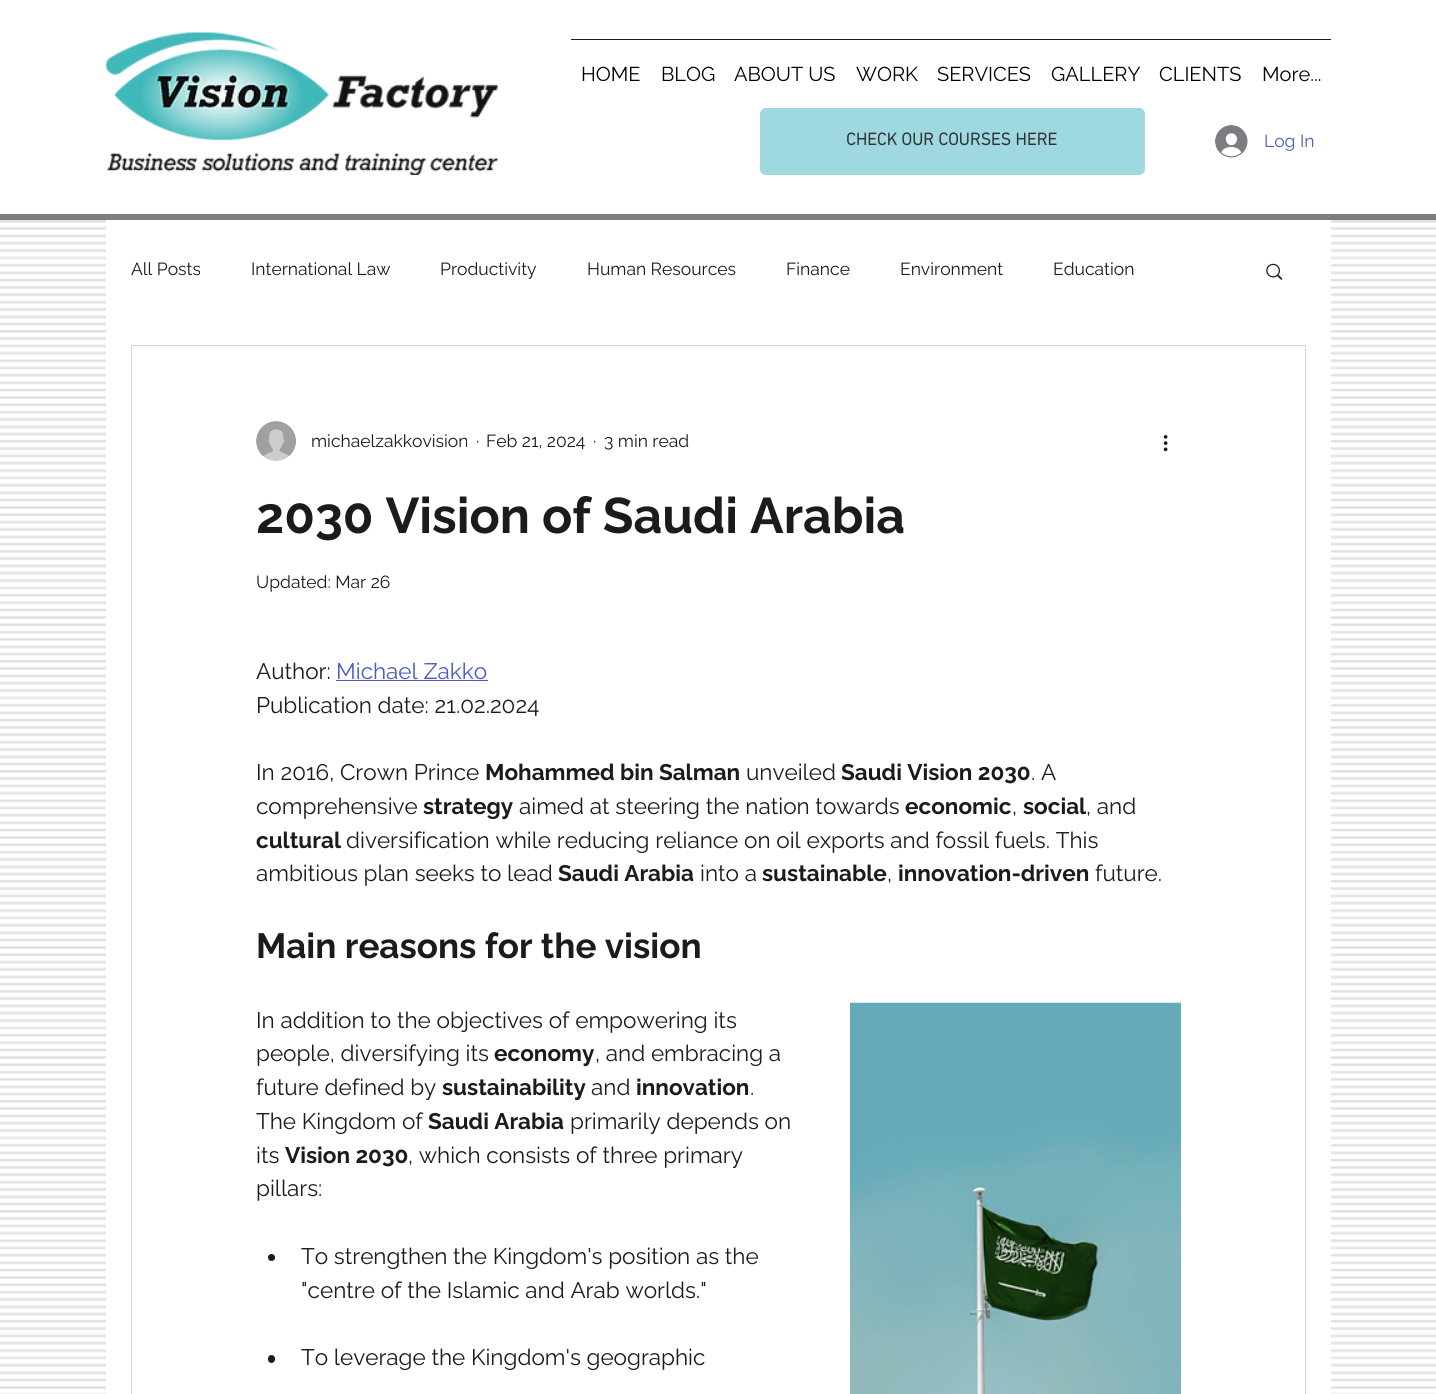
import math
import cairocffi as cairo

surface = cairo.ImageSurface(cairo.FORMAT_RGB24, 1436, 1394)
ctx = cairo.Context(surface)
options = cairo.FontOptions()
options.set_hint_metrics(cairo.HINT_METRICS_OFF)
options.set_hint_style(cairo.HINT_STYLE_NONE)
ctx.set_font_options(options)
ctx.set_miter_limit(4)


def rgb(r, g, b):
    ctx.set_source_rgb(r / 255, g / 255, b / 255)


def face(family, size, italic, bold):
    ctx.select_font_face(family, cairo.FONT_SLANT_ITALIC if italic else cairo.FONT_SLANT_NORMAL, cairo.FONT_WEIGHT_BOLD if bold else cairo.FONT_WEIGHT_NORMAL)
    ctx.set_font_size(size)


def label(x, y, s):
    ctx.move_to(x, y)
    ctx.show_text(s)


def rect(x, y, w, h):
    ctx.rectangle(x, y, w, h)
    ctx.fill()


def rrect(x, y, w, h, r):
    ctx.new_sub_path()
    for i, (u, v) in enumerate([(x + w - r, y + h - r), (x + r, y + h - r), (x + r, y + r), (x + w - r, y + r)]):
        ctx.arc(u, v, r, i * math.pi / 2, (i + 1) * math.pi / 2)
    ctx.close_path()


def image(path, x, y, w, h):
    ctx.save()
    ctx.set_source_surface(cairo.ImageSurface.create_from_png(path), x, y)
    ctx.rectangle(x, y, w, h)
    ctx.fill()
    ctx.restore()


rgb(255, 255, 255)
ctx.paint()
image('image0.png', 106, 32, 392, 143)
rgb(27, 27, 30)
rect(571, 39, 760, 1)
face('Raleway', 20, 0, 0)
rgb(0, 0, 0)
label(581, 81, 'HOME')
label(661, 81, 'BLOG')
label(734, 81, 'ABOUT US')
label(856, 81, 'WORK')
label(937, 81, 'SERVICES')
label(1051, 81, 'GALLERY')
label(1159, 81, 'CLIENTS')
label(1262, 81, 'More...')
rgb(158, 217, 225)
rrect(760, 108, 385, 67, 6)
ctx.fill()
face('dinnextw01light', 17.5, 0, 1)
rgb(50, 50, 50)
label(846, 145, 'CHECK OUR COURSES HERE')
image('image1.png', 1215, 125, 33, 33)
face('Raleway', 17.5, 0, 0)
rgb(78, 90, 195)
label(1264, 147, 'Log In')
rgb(124, 124, 131)
rect(0, 214, 1436, 6)
image('image6.png', 0, 220, 1436, 1174)
rgb(255, 255, 255)
rect(106, 220, 1225, 1174)
rgb(27, 27, 30)
label(131, 275, 'All Posts')
label(251, 275, 'International Law')
label(440, 275, 'Productivity')
label(587, 275, 'Human Resources')
label(786, 275, 'Finance')
label(900, 275, 'Environment')
label(1053, 275, 'Education')
image('image2.png', 1266, 263, 17, 17)
ctx.rectangle(131.5, 345.5, 1174, 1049)
rgb(211, 211, 211)
ctx.set_line_width(1)
ctx.stroke()
image('image3.png', 256, 421, 40, 40)
rgb(27, 27, 30)
label(311, 447, 'michaelzakkovision')
label(476, 447, '·')
label(486, 447, 'Feb 21, 2024')
label(593, 447, '·')
label(604, 447, '3 min read')
image('image4.png', 1163, 435, 5, 17)
face('Raleway', 50, 0, 1)
label(256, 533, '2030 Vision of Saudi Arabia')
face('Raleway', 17.5, 0, 0)
label(256, 588, 'Updated: Mar 26')
face('Raleway', 22.5, 0, 0)
label(256, 679, 'Author:')
rgb(78, 90, 195)
label(336, 679, 'Michael Zakko')
rect(336, 680, 152, 1)
rgb(27, 27, 30)
label(256, 713, 'Publication date: 21.02.2024')
label(256, 780, 'In 2016, Crown Prince')
face('Raleway', 22.5, 0, 1)
label(485, 780, 'Mohammed bin Salman')
face('Raleway', 22.5, 0, 0)
label(746, 780, 'unveiled')
face('Raleway', 22.5, 0, 1)
label(841, 780, 'Saudi Vision 2030')
face('Raleway', 22.5, 0, 0)
label(1031, 780, '. A')
label(256, 814, 'comprehensive')
face('Raleway', 22.5, 0, 1)
label(423, 814, 'strategy')
face('Raleway', 22.5, 0, 0)
label(519, 814, 'aimed at steering the nation towards')
face('Raleway', 22.5, 0, 1)
label(905, 814, 'economic')
face('Raleway', 22.5, 0, 0)
label(1012, 814, ',')
face('Raleway', 22.5, 0, 1)
label(1023, 814, 'social')
face('Raleway', 22.5, 0, 0)
label(1086, 814, ', and')
face('Raleway', 22.5, 0, 1)
label(256, 848, 'cultural')
face('Raleway', 22.5, 0, 0)
label(346, 848, 'diversification while reducing reliance on oil exports and fossil fuels. This')
label(256, 881, 'ambitious plan seeks to lead')
face('Raleway', 22.5, 0, 1)
label(558, 881, 'Saudi Arabia')
face('Raleway', 22.5, 0, 0)
label(700, 881, 'into a')
face('Raleway', 22.5, 0, 1)
label(762, 881, 'sustainable')
face('Raleway', 22.5, 0, 0)
label(887, 881, ',')
face('Raleway', 22.5, 0, 1)
label(898, 881, 'innovation-driven')
face('Raleway', 22.5, 0, 0)
label(1095, 881, 'future.')
face('Raleway', 35, 0, 1)
label(256, 958, 'Main reasons for the vision')
face('Raleway', 22.5, 0, 0)
label(256, 1028, 'In addition to the objectives of empowering its')
label(256, 1061, 'people, diversifying its')
face('Raleway', 22.5, 0, 1)
label(494, 1061, 'economy')
face('Raleway', 22.5, 0, 0)
label(595, 1061, ', and embracing a')
label(256, 1095, 'future defined by')
face('Raleway', 22.5, 0, 1)
label(442, 1095, 'sustainability')
face('Raleway', 22.5, 0, 0)
label(591, 1095, 'and')
face('Raleway', 22.5, 0, 1)
label(636, 1095, 'innovation')
face('Raleway', 22.5, 0, 0)
label(750, 1095, '.')
label(256, 1129, 'The Kingdom of')
face('Raleway', 22.5, 0, 1)
label(428, 1129, 'Saudi Arabia')
face('Raleway', 22.5, 0, 0)
label(570, 1129, 'primarily depends on')
label(256, 1163, 'its')
face('Raleway', 22.5, 0, 1)
label(285, 1163, 'Vision 2030')
face('Raleway', 22.5, 0, 0)
label(408, 1163, ', which consists of three primary')
label(256, 1196, 'pillars:')
image('image5.png', 850, 1002, 332, 392)
ctx.arc(271.5, 1257.5, 3.5, 0, 2 * math.pi)
ctx.fill()
label(301, 1264, 'To strengthen the Kingdom\'s position as the')
label(301, 1298, '"centre of the Islamic and Arab worlds."')
rrect(268, 1355, 7, 8, 3.5)
ctx.fill()
label(301, 1365, 'To leverage the Kingdom\'s geographic')
surface.write_to_png('render.png')
